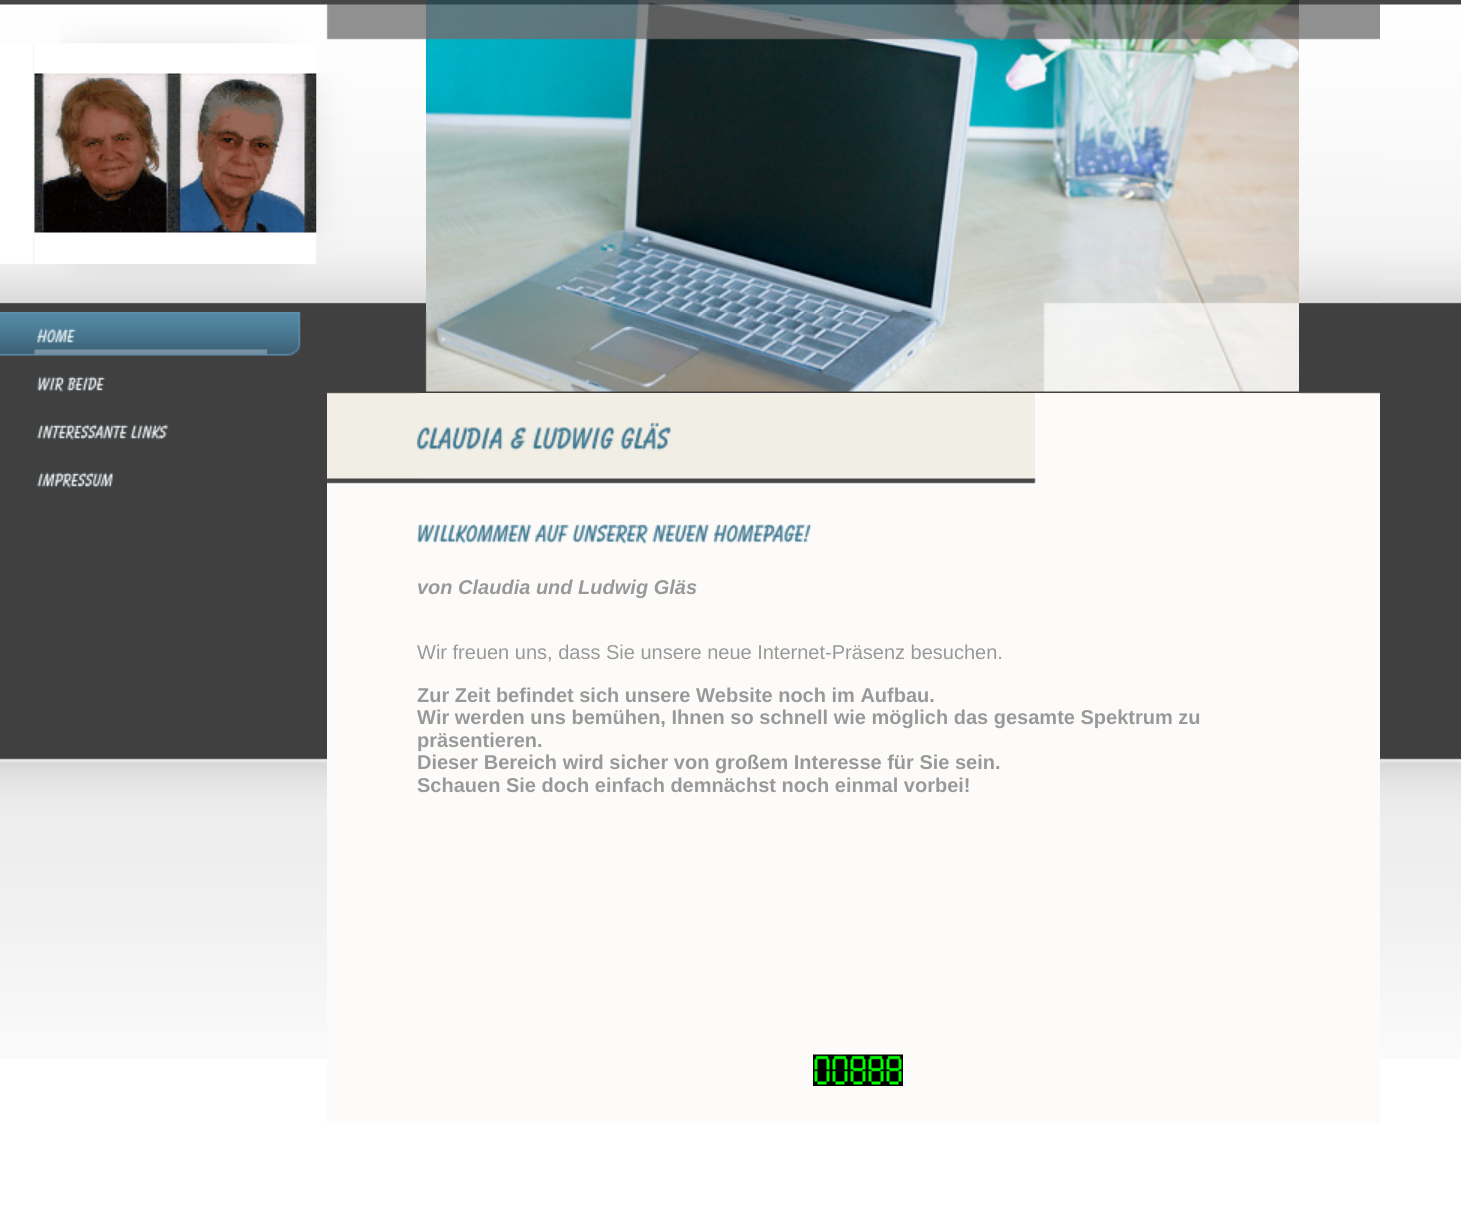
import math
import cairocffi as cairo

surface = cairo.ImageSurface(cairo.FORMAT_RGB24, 1461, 1221)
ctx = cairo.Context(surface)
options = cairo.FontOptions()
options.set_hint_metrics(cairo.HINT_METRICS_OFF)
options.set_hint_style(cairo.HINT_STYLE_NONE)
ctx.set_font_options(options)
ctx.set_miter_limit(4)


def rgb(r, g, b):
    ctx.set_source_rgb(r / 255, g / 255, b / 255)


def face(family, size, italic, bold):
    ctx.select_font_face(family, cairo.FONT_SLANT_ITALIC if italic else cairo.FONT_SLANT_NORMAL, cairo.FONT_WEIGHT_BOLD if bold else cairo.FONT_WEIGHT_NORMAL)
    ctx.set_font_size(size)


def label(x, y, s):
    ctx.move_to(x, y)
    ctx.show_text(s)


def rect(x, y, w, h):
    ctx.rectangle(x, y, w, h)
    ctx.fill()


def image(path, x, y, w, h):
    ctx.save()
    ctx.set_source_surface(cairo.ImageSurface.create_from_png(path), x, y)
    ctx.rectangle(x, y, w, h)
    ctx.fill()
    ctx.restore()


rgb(255, 255, 255)
ctx.paint()
image('image0.png', 0, 0, 1461, 1059)
image('image1.png', 59, 4, 367, 40)
image('image2.png', 0, 44, 35, 259)
image('image3.png', 34, 43, 283, 221)
image('image4.png', 316, 73, 110, 230)
image('image5.png', 35, 264, 281, 39)
image('image6.png', 426, 0, 873, 312)
image('image7.png', 1299, 4, 81, 299)
image('image8.png', 0, 312, 301, 44)
image('image9.png', 37, 376, 69, 16)
image('image10.png', 37, 424, 132, 16)
image('image11.png', 37, 472, 76, 16)
rgb(252, 251, 249)
rect(327, 484, 90, 602)
image('image12.png', 327, 312, 90, 172)
rect(417, 393, 882, 693)
image('image13.png', 417, 312, 882, 81)
image('image14.png', 417, 393, 618, 86)
image('image15.png', 417, 478, 619, 6)
image('image16.png', 417, 523, 395, 21)
face('Liberation Sans', 20, 1, 1)
rgb(153, 153, 153)
label(417, 594, 'von Claudia und Ludwig Gläs')
face('Liberation Sans', 20, 0, 0)
label(417, 659, 'Wir freuen uns, dass Sie unsere neue Internet-Präsenz besuchen.')
face('Liberation Sans', 20, 0, 1)
label(417, 702, 'Zur Zeit befindet sich unsere Website noch im Aufbau.')
label(417, 724, 'Wir werden uns bemühen, Ihnen so schnell wie möglich das gesamte Spektrum zu')
label(417, 747, 'präsentieren.')
label(417, 769, 'Dieser Bereich wird sicher von großem Interesse für Sie sein.')
label(417, 792, 'Schauen Sie doch einfach demnächst noch einmal vorbei!')
image('image17.png', 813, 1054, 90, 32)
rgb(252, 251, 249)
rect(1299, 394, 81, 692)
image('image18.png', 1299, 312, 81, 82)
rect(327, 1086, 1053, 37)
surface.write_to_png('render.png')
